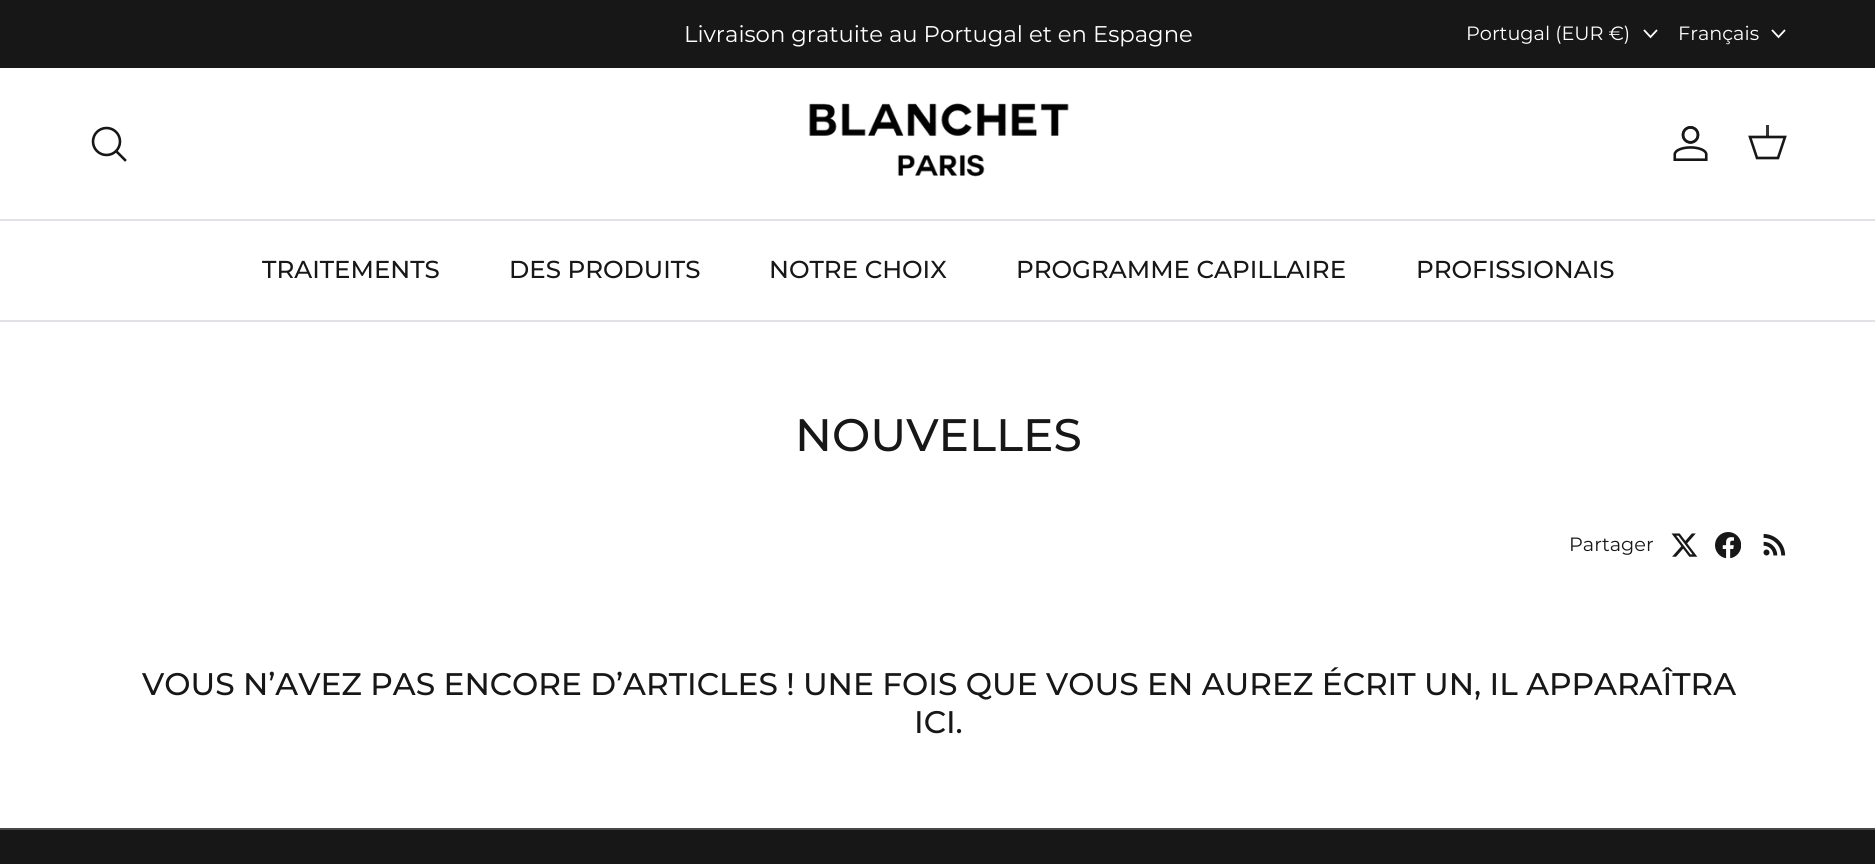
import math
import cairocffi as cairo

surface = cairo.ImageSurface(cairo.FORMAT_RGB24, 1875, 864)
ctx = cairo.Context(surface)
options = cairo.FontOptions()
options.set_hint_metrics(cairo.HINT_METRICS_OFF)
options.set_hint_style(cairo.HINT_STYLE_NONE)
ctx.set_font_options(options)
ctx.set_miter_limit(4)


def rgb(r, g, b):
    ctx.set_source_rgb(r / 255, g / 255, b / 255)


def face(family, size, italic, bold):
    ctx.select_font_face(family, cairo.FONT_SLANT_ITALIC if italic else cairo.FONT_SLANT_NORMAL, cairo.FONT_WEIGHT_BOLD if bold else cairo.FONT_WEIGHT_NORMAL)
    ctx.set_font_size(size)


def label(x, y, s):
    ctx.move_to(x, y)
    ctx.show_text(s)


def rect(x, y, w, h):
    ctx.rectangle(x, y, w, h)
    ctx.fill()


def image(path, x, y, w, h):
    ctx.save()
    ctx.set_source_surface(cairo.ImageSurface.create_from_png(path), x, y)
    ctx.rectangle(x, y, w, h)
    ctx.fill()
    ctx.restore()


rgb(255, 255, 255)
ctx.paint()
rgb(23, 23, 23)
rect(0, 0, 1875, 68)
face('Montserrat', 22.75, 0, 0)
rgb(255, 255, 255)
label(684, 42, 'Livraison gratuite au Portugal et en Espagne')
face('Montserrat', 19.25, 0, 0)
label(1466, 40, 'Portugal (EUR €)')
ctx.new_path()
ctx.move_to(1657, 30)
ctx.line_to(1650.5, 37)
ctx.line_to(1644, 30)
ctx.set_line_width(1.8)
ctx.stroke()
label(1678, 40, 'Français')
ctx.new_path()
ctx.move_to(1785, 30)
ctx.line_to(1778.5, 37)
ctx.line_to(1772, 30)
ctx.stroke()
rgb(223, 227, 232)
rect(0, 219, 1875, 2)
ctx.arc(106.5, 141.5, 13.5, 0, 2 * math.pi)
rgb(23, 23, 23)
ctx.set_line_width(2.6)
ctx.stroke()
ctx.new_path()
ctx.move_to(117, 152)
ctx.line_to(125, 160)
ctx.set_line_cap(cairo.LINE_CAP_SQUARE)
ctx.stroke()
image('image0.png', 809, 103, 260, 74)
image('image1.png', 1673, 126, 35, 35)
ctx.new_path()
ctx.move_to(1750, 137)
ctx.line_to(1785, 137)
ctx.line_to(1778, 158)
ctx.line_to(1757, 158)
ctx.close_path()
ctx.set_line_cap(cairo.LINE_CAP_BUTT)
ctx.stroke()
ctx.set_source_rgba(0.09, 0.09, 0.09, 0.87)
rect(1766, 125, 3, 13)
rgb(223, 227, 232)
rect(0, 320, 1875, 2)
face('Montserrat Medium', 24.5, 0, 0)
rgb(23, 23, 23)
label(262, 278, 'TRAITEMENTS')
label(509, 278, 'DES PRODUITS')
label(769, 278, 'NOTRE CHOIX')
label(1016, 278, 'PROGRAMME CAPILLAIRE')
label(1416, 278, 'PROFISSIONAIS')
face('Montserrat Medium', 45.5, 0, 0)
label(795, 451, 'NOUVELLES')
face('Montserrat', 19.25, 0, 0)
label(1569, 551, 'Partager')
image('image2.png', 1671, 533, 27, 24)
image('image3.png', 1715, 532, 26, 26)
image('image4.png', 1763, 534, 23, 22)
face('Montserrat Medium', 31.22, 0, 0)
label(142, 695, 'VOUS N’AVEZ PAS ENCORE D’ARTICLES ! UNE FOIS QUE VOUS EN AUREZ ÉCRIT UN, IL APPARAÎTRA')
label(914, 733, 'ICI.')
rect(0, 830, 1875, 34)
rgb(72, 72, 72)
rect(0, 828, 1875, 2)
surface.write_to_png('render.png')
